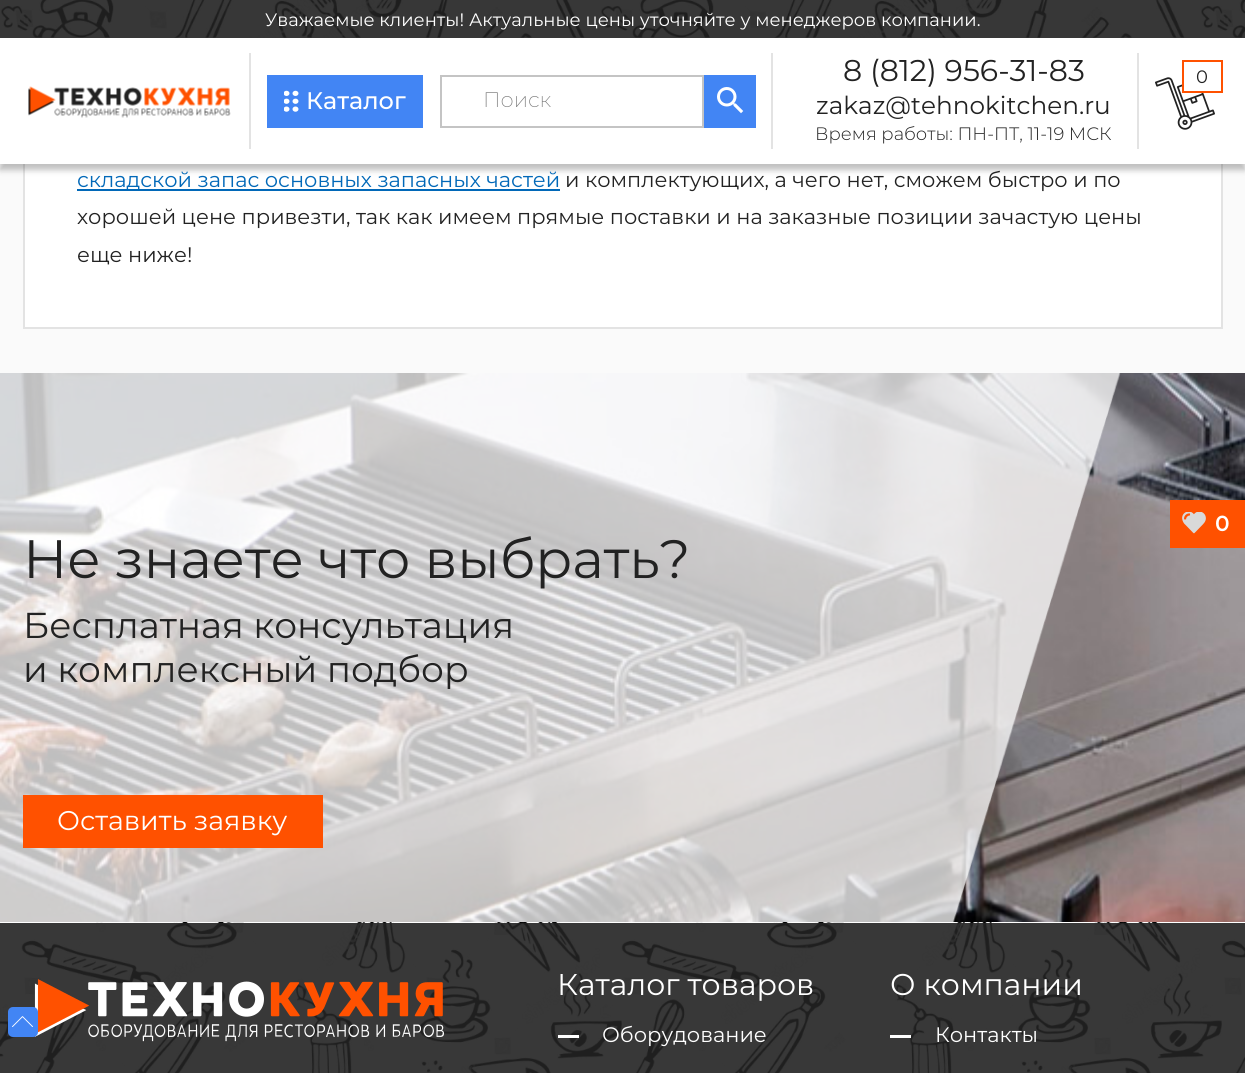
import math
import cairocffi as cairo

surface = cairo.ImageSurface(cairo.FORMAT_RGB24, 1245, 1073)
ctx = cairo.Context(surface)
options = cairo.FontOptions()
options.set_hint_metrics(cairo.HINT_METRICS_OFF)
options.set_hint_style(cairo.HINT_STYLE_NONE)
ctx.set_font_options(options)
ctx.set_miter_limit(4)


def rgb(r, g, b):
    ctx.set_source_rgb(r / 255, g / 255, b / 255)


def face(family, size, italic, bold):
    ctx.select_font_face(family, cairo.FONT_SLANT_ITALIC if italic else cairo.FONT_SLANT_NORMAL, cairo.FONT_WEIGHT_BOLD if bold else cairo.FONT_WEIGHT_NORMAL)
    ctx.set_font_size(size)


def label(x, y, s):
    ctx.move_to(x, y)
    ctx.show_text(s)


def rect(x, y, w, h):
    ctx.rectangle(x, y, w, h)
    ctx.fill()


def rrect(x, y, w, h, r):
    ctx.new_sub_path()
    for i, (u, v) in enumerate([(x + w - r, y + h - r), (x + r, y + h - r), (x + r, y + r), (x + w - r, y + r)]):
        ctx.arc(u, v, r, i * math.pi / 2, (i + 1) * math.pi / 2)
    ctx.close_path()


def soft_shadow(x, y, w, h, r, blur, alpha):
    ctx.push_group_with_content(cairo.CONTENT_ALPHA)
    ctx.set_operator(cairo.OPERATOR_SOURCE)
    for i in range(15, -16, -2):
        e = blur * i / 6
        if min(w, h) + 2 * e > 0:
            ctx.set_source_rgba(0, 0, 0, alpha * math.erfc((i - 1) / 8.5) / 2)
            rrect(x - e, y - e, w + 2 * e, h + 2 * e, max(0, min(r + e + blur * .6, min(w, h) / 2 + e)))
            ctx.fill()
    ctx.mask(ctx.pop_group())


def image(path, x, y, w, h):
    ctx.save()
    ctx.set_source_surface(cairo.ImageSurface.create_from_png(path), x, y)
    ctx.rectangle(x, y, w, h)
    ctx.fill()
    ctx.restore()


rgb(250, 250, 250)
ctx.paint()
rgb(255, 255, 255)
rect(25, 164, 1196, 163)
ctx.rectangle(24, -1, 1198, 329)
rgb(227, 227, 227)
ctx.stroke()
rgb(0, 0, 0)
soft_shadow(0, 6, 1245, 164, 0, 3, 0.25)
rgb(255, 255, 255)
rect(0, 0, 1245, 164)
image('image0.png', 1, 0, 1244, 38)
ctx.set_source_rgba(0.133, 0.133, 0.133, 0.9)
rect(0, 0, 1245, 38)
face('Montserrat', 18, 0, 0)
rgb(255, 255, 255)
label(265, 26, 'Уважаемые клиенты! Актуальные цены уточняйте у менеджеров компании.')
rgb(227, 227, 227)
rect(249, 53, 2, 96)
image('image1.png', 28, 86, 203, 32)
rect(1137, 53, 2, 96)
face('Montserrat', 30, 0, 0)
rgb(34, 34, 34)
label(843, 81, '8 (812) 956-31-83')
face('Montserrat', 24.75, 0, 0)
label(816, 114, 'zakaz@tehnokitchen.ru')
face('Montserrat Light', 18, 0, 0)
label(815, 140, 'Время работы: ПН-ПТ, 11-19 МСК')
image('image2.png', 1155, 77, 60, 53)
rgb(255, 255, 255)
rect(1184, 78, 19, 13)
ctx.rectangle(1183, 61, 39, 31)
rgb(255, 81, 0)
ctx.stroke()
face('Montserrat', 18, 0, 0)
rgb(34, 34, 34)
label(1196, 83, '0')
rgb(66, 133, 244)
rect(267, 75, 156, 53)
image('image3.png', 284, 90, 15, 22)
face('Montserrat Medium', 24, 0, 0)
rgb(255, 255, 255)
label(306, 109, 'Каталог')
rgb(227, 227, 227)
rect(771, 53, 2, 96)
ctx.rectangle(441, 76, 262, 51)
rgb(196, 196, 196)
ctx.stroke()
face('Montserrat ExtraLight', 21, 0, 0)
rgb(117, 117, 117)
label(483, 107, 'Поиск')
rgb(66, 133, 244)
rect(704, 75, 52, 53)
image('image4.png', 717, 87, 27, 27)
rgb(1, 104, 184)
rect(77, 189, 483, 2)
face('Montserrat', 21, 0, 0)
label(77, 187, 'складской запас основных запасных частей')
rgb(34, 34, 34)
label(565, 187, 'и комплектующих, а чего нет, сможем быстро и по')
label(77, 224, 'хорошей цене привезти, так как имеем прямые поставки и на заказные позиции зачастую цены')
label(77, 262, 'еще ниже!')
image('image5.png', 0, 373, 1245, 549)
image('image6.png', 0, 373, 1121, 549)
face('Montserrat', 54, 0, 0)
label(23, 578, 'Не знаете что выбрать?')
face('Montserrat', 36, 0, 0)
label(23, 638, 'Бесплатная консультация')
label(23, 682, 'и комплексный подбор')
rgb(255, 81, 0)
rect(23, 795, 300, 53)
face('Montserrat', 27, 0, 0)
rgb(255, 255, 255)
label(57, 830, 'Оставить заявку')
image('image8.png', 0, 922, 1245, 151)
image('image9.png', 34, 979, 410, 63)
rgb(66, 133, 244)
rrect(8, 1007, 30, 30, 5)
ctx.fill()
image('image7.png', 12, 1016, 21, 11)
face('Montserrat', 30, 0, 0)
rgb(255, 255, 255)
label(557, 995, 'Каталог товаров')
rect(558, 1035, 21, 3)
face('Montserrat', 21, 0, 0)
label(602, 1042, 'Оборудование')
face('Montserrat', 30, 0, 0)
label(890, 995, 'О компании')
rect(890, 1035, 21, 3)
face('Montserrat', 21, 0, 0)
label(935, 1042, 'Контакты')
rgb(255, 81, 0)
rect(1170, 500, 75, 48)
image('image10.png', 1182, 512, 24, 22)
face('Montserrat', 21, 0, 1)
rgb(255, 255, 255)
label(1215, 531, '0')
surface.write_to_png('render.png')
